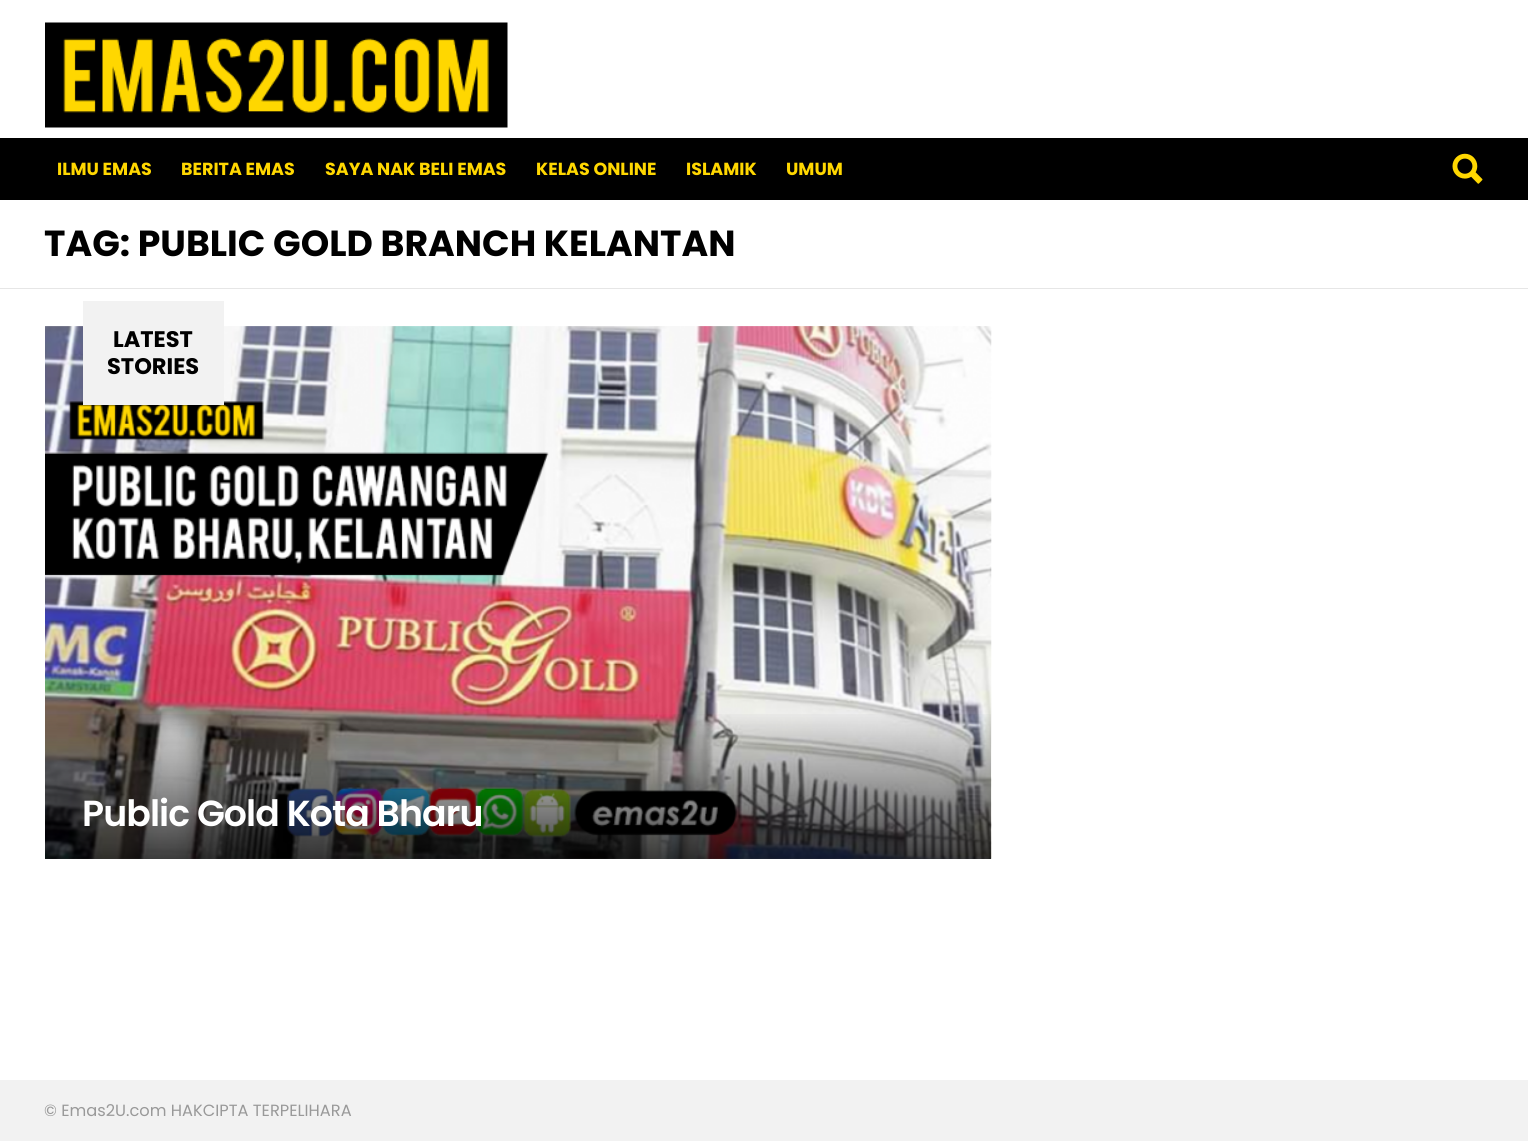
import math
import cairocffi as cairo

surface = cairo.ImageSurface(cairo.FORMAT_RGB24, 1528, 1141)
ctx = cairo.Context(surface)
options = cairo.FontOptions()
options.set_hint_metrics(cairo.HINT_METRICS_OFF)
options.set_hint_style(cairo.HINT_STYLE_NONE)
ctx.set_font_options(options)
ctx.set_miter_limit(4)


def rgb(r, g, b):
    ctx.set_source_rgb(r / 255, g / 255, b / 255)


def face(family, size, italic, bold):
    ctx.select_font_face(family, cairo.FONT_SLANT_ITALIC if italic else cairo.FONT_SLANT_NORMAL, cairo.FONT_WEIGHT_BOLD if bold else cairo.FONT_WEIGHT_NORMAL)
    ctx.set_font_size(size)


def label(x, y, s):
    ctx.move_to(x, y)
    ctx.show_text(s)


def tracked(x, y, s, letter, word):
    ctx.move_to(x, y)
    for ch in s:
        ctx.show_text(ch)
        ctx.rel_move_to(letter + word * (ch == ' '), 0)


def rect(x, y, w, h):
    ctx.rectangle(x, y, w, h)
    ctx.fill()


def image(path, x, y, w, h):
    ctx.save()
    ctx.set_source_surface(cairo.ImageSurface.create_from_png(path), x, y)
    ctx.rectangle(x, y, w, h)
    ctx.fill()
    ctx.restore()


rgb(255, 255, 255)
ctx.paint()
image('image0.png', 45, 22, 463, 106)
rgb(0, 0, 0)
rect(0, 138, 1528, 62)
face('Poppins', 17.5, 0, 1)
rgb(255, 215, 0)
label(57, 175, 'ILMU EMAS')
label(181, 175, 'BERITA EMAS')
label(325, 175, 'SAYA NAK BELI EMAS')
label(536, 175, 'KELAS ONLINE')
label(686, 175, 'ISLAMIK')
label(786, 175, 'UMUM')
image('image1.png', 1452, 153, 31, 31)
face('Poppins', 36.25, 0, 1)
rgb(0, 0, 0)
label(44, 256, 'TAG: PUBLIC GOLD BRANCH KELANTAN')
rgb(230, 230, 230)
rect(0, 288, 1528, 1)
image('image2.png', 45, 326, 947, 533)
image('image3.png', 45, 326, 947, 533)
rgb(242, 242, 242)
rect(83, 301, 141, 104)
face('Poppins', 22.5, 0, 1)
rgb(0, 0, 0)
label(113, 347, 'LATEST')
label(107, 374, 'STORIES')
gradient = cairo.LinearGradient(518, 710, 518, 859)
gradient.add_color_stop_rgba(0, 0, 0, 0, 0)
gradient.add_color_stop_rgba(1, 0, 0, 0, 0.75)
ctx.set_source(gradient)
rect(45, 714, 946, 145)
face('Poppins SemiBold', 36.25, 0, 0)
rgb(255, 255, 255)
tracked(82, 826, 'Public Gold Kota Bharu', -0.9, 0)
rgb(242, 242, 242)
rect(0, 1080, 1528, 61)
face('Poppins', 16.25, 0, 0)
rgb(153, 153, 153)
label(44, 1116, '© Emas2U.com HAKCIPTA TERPELIHARA')
surface.write_to_png('render.png')
